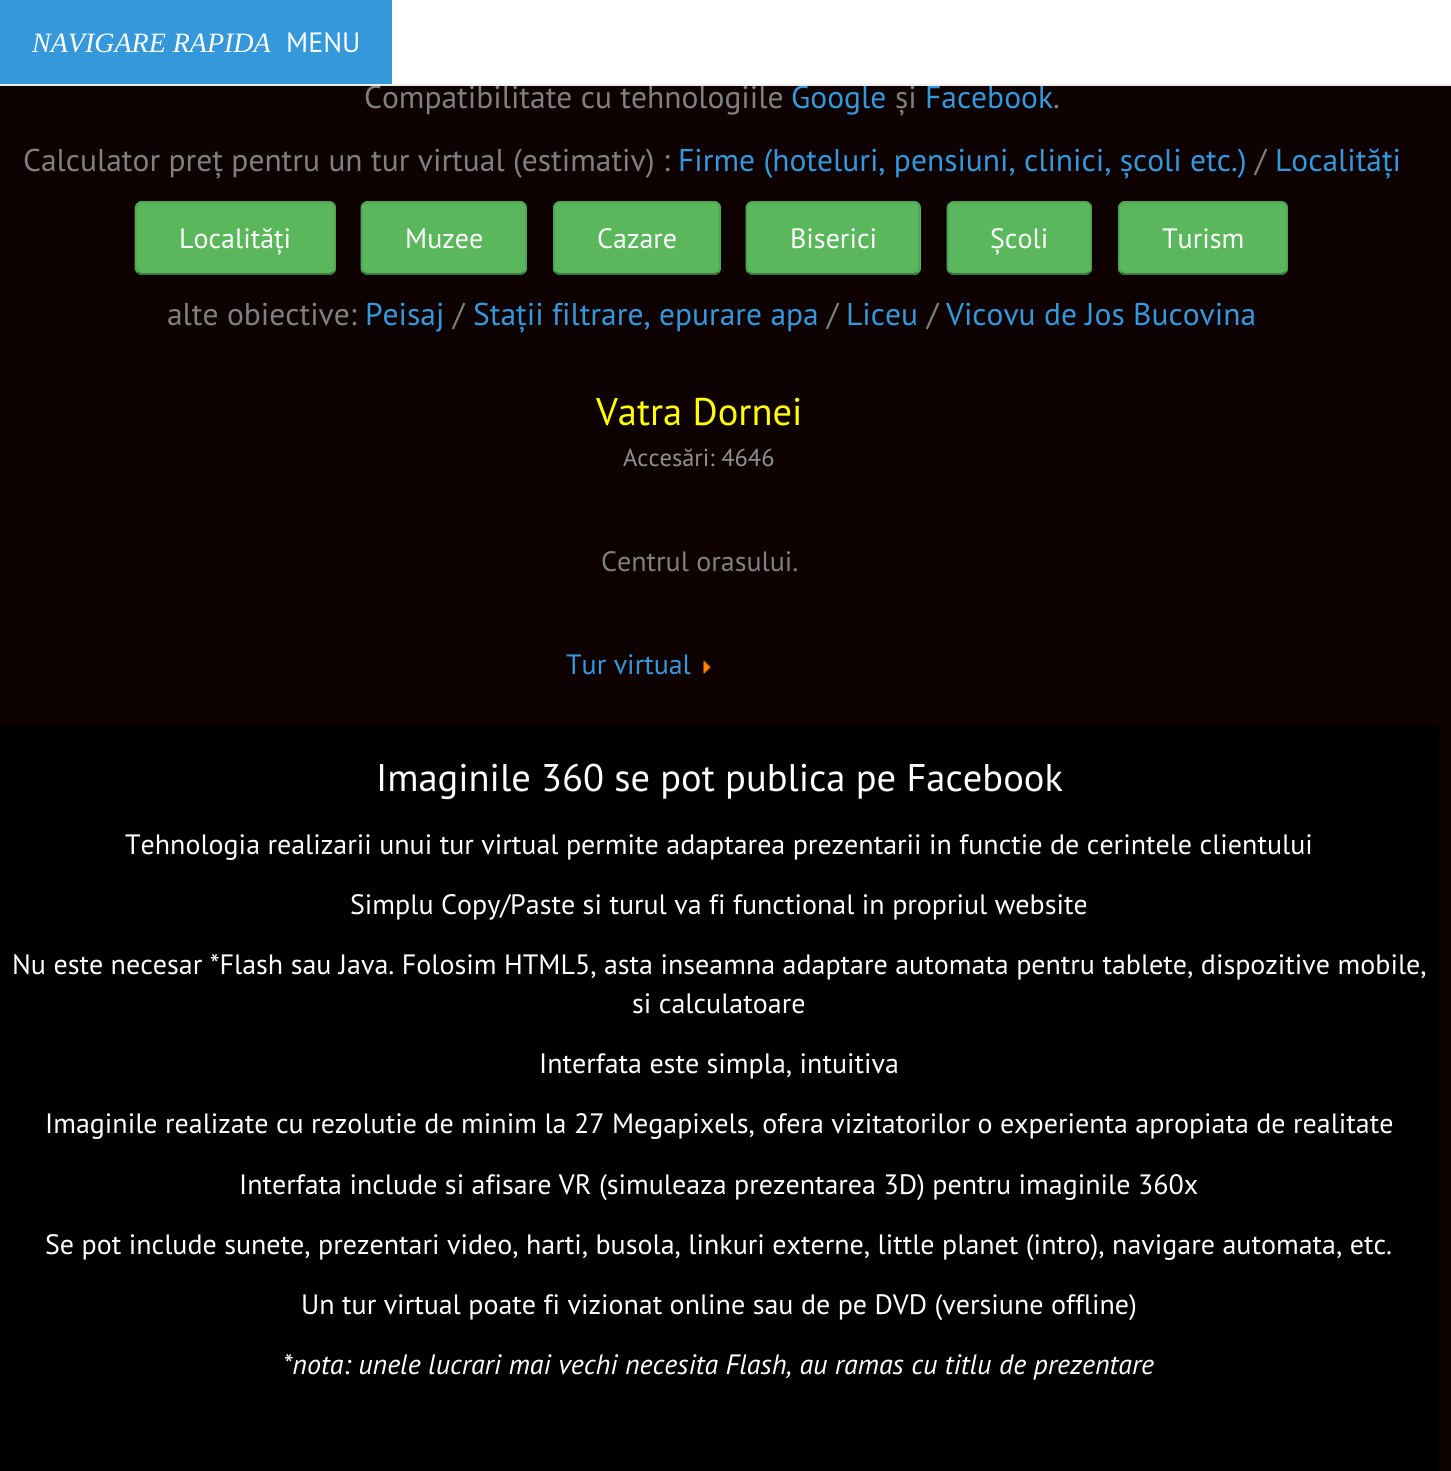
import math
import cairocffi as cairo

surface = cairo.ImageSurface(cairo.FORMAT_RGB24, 1451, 1471)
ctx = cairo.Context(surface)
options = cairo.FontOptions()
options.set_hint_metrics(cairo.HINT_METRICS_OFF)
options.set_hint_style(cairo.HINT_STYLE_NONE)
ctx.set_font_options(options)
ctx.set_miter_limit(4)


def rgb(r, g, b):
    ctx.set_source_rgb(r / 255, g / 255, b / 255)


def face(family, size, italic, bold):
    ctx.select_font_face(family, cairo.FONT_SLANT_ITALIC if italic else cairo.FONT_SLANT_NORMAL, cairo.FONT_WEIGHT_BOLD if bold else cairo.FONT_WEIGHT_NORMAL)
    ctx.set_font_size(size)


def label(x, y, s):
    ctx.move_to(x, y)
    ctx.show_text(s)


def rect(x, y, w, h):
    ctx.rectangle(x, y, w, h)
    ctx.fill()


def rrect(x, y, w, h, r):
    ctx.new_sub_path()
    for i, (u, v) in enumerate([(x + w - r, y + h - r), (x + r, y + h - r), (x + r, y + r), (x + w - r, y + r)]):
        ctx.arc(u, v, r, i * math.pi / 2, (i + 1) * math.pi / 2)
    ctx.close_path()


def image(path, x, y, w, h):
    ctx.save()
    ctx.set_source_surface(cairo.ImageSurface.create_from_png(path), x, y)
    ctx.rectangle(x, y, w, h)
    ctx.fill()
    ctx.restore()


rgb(13, 1, 1)
ctx.paint()
rgb(255, 255, 255)
rect(392, 0, 1059, 84)
face('PT Sans', 31.5, 0, 0)
rgb(128, 128, 128)
label(364, 108, 'Compatibilitate cu tehnologiile')
rgb(52, 152, 219)
label(791, 108, 'Google')
rgb(128, 128, 128)
label(895, 108, 'și')
rgb(52, 152, 219)
label(925, 108, 'Facebook')
rgb(238, 238, 238)
rect(0, 84, 1451, 2)
rgb(52, 152, 219)
rect(0, 0, 392, 84)
face('Liberation Serif', 28, 1, 0)
rgb(255, 255, 255)
label(32, 52, 'NAVIGARE RAPIDA')
face('PT Sans', 28, 0, 0)
label(286, 52, 'MENU')
face('PT Sans', 31.5, 0, 0)
rgb(128, 128, 128)
label(1053, 108, '.')
label(23, 171, 'Calculator preț pentru un tur virtual (estimativ) :')
rgb(52, 152, 219)
label(678, 171, 'Firme (hoteluri, pensiuni, clinici, școli etc.)')
rgb(128, 128, 128)
label(1255, 171, '/')
rgb(52, 152, 219)
label(1275, 171, 'Localități')
rgb(91, 183, 91)
rrect(135, 201, 201, 74, 7)
ctx.fill()
ctx.new_path()
ctx.move_to(333.5, 272)
ctx.curve_to(332, 273, 330.5, 274, 329, 274)
ctx.line_to(142, 274)
ctx.curve_to(140, 274, 138.5, 273, 137.5, 272)
rgb(56, 112, 56)
ctx.set_line_width(1.8)
ctx.stroke()
ctx.new_path()
ctx.move_to(137.5, 272)
ctx.curve_to(136.5, 271, 135.5, 269.5, 135.5, 268)
ctx.line_to(135.5, 208)
ctx.curve_to(135.5, 206.5, 136.5, 205, 137.5, 204)
ctx.curve_to(138.5, 203, 140, 202, 142, 202)
ctx.line_to(329, 202)
ctx.curve_to(330.5, 202, 332, 203, 333.5, 204)
ctx.curve_to(334.5, 205, 335, 206.5, 335, 208)
ctx.line_to(335, 268)
ctx.curve_to(335, 269.5, 334.5, 271, 333.5, 272)
rgb(81, 163, 81)
ctx.stroke()
face('PT Sans', 28, 0, 0)
rgb(255, 255, 255)
label(179, 248, 'Localități')
rgb(91, 183, 91)
rrect(361, 201, 166, 74, 7)
ctx.fill()
ctx.new_path()
ctx.move_to(524, 272)
ctx.curve_to(523, 273, 521.5, 274, 520, 274)
ctx.line_to(367.5, 274)
ctx.curve_to(366, 274, 364.5, 273, 363, 272)
rgb(56, 112, 56)
ctx.stroke()
ctx.new_path()
ctx.move_to(363, 272)
ctx.curve_to(362, 271, 361.5, 269.5, 361.5, 268)
ctx.line_to(361.5, 208)
ctx.curve_to(361.5, 206.5, 362, 205, 363, 204)
ctx.curve_to(364.5, 203, 366, 202, 367.5, 202)
ctx.line_to(520, 202)
ctx.curve_to(521.5, 202, 523, 203, 524, 204)
ctx.curve_to(525, 205, 526, 206.5, 526, 208)
ctx.line_to(526, 268)
ctx.curve_to(526, 269.5, 525, 271, 524, 272)
rgb(81, 163, 81)
ctx.stroke()
rgb(255, 255, 255)
label(405, 248, 'Muzee')
rgb(91, 183, 91)
rrect(553, 201, 168, 74, 7)
ctx.fill()
ctx.new_path()
ctx.move_to(718.5, 272)
ctx.curve_to(717, 273, 715.5, 274, 714, 274)
ctx.line_to(560, 274)
ctx.curve_to(558.5, 274, 557, 273, 555.5, 272)
rgb(56, 112, 56)
ctx.stroke()
ctx.new_path()
ctx.move_to(555.5, 272)
ctx.curve_to(554.5, 271, 554, 269.5, 554, 268)
ctx.line_to(554, 208)
ctx.curve_to(554, 206.5, 554.5, 205, 555.5, 204)
ctx.curve_to(557, 203, 558.5, 202, 560, 202)
ctx.line_to(714, 202)
ctx.curve_to(715.5, 202, 717, 203, 718.5, 204)
ctx.curve_to(719.5, 205, 720, 206.5, 720, 208)
ctx.line_to(720, 268)
ctx.curve_to(720, 269.5, 719.5, 271, 718.5, 272)
rgb(81, 163, 81)
ctx.stroke()
rgb(255, 255, 255)
label(597, 248, 'Cazare')
rgb(91, 183, 91)
rrect(746, 201, 175, 74, 7)
ctx.fill()
ctx.new_path()
ctx.move_to(918, 272)
ctx.curve_to(916.5, 273, 915, 274, 913.5, 274)
ctx.line_to(752.5, 274)
ctx.curve_to(751, 274, 749.5, 273, 748, 272)
rgb(56, 112, 56)
ctx.stroke()
ctx.new_path()
ctx.move_to(748, 272)
ctx.curve_to(747, 271, 746.5, 269.5, 746.5, 268)
ctx.line_to(746.5, 208)
ctx.curve_to(746.5, 206.5, 747, 205, 748, 204)
ctx.curve_to(749.5, 203, 751, 202, 752.5, 202)
ctx.line_to(913.5, 202)
ctx.curve_to(915, 202, 916.5, 203, 918, 204)
ctx.curve_to(919, 205, 919.5, 206.5, 919.5, 208)
ctx.line_to(919.5, 268)
ctx.curve_to(919.5, 269.5, 919, 271, 918, 272)
rgb(81, 163, 81)
ctx.stroke()
rgb(255, 255, 255)
label(790, 248, 'Biserici')
rgb(91, 183, 91)
rrect(947, 201, 145, 74, 7)
ctx.fill()
ctx.new_path()
ctx.move_to(1089.5, 272)
ctx.curve_to(1088, 273, 1086.5, 274, 1085, 274)
ctx.line_to(954, 274)
ctx.curve_to(952, 274, 950.5, 273, 949.5, 272)
rgb(56, 112, 56)
ctx.stroke()
ctx.new_path()
ctx.move_to(949.5, 272)
ctx.curve_to(948.5, 271, 947.5, 269.5, 947.5, 268)
ctx.line_to(947.5, 208)
ctx.curve_to(947.5, 206.5, 948.5, 205, 949.5, 204)
ctx.curve_to(950.5, 203, 952, 202, 954, 202)
ctx.line_to(1085, 202)
ctx.curve_to(1086.5, 202, 1088, 203, 1089.5, 204)
ctx.curve_to(1090.5, 205, 1091, 206.5, 1091, 208)
ctx.line_to(1091, 268)
ctx.curve_to(1091, 269.5, 1090.5, 271, 1089.5, 272)
rgb(81, 163, 81)
ctx.stroke()
rgb(255, 255, 255)
label(990, 248, 'Școli')
rgb(91, 183, 91)
rrect(1118, 201, 170, 74, 7)
ctx.fill()
ctx.new_path()
ctx.move_to(1285.5, 272)
ctx.curve_to(1284, 273, 1282.5, 274, 1281, 274)
ctx.line_to(1125, 274)
ctx.curve_to(1123.5, 274, 1122, 273, 1121, 272)
rgb(56, 112, 56)
ctx.stroke()
ctx.new_path()
ctx.move_to(1121, 272)
ctx.curve_to(1120, 271, 1119, 269.5, 1119, 268)
ctx.line_to(1119, 208)
ctx.curve_to(1119, 206.5, 1120, 205, 1121, 204)
ctx.curve_to(1122, 203, 1123.5, 202, 1125, 202)
ctx.line_to(1281, 202)
ctx.curve_to(1282.5, 202, 1284, 203, 1285.5, 204)
ctx.curve_to(1286.5, 205, 1287, 206.5, 1287, 208)
ctx.line_to(1287, 268)
ctx.curve_to(1287, 269.5, 1286.5, 271, 1285.5, 272)
rgb(81, 163, 81)
ctx.stroke()
rgb(255, 255, 255)
label(1162, 248, 'Turism')
face('PT Sans', 31.5, 0, 0)
rgb(128, 128, 128)
label(167, 325, 'alte obiective:')
rgb(52, 152, 219)
label(365, 325, 'Peisaj')
rgb(128, 128, 128)
label(453, 325, '/')
rgb(52, 152, 219)
label(473, 325, 'Stații filtrare, epurare apa')
rgb(128, 128, 128)
label(827, 325, '/')
rgb(52, 152, 219)
label(846, 325, 'Liceu')
rgb(128, 128, 128)
label(927, 325, '/')
rgb(52, 152, 219)
label(946, 325, 'Vicovu de Jos Bucovina')
face('PT Sans', 38.5, 0, 0)
rgb(255, 255, 0)
label(596, 425, 'Vatra Dornei')
face('PT Sans', 24.5, 0, 0)
rgb(144, 144, 144)
label(623, 466, 'Accesări: 4646')
face('PT Sans', 28, 0, 0)
rgb(128, 128, 128)
label(601, 571, 'Centrul orasului.')
rgb(52, 152, 219)
label(566, 674, 'Tur virtual')
image('image0.png', 703, 660, 8, 14)
rgb(0, 0, 0)
rect(0, 725, 1439, 746)
face('PT Sans', 38.5, 0, 0)
rgb(255, 255, 255)
label(376, 791, 'Imaginile 360 se pot publica pe Facebook')
face('PT Sans', 28, 0, 0)
label(125, 854, 'Tehnologia realizarii unui tur virtual permite adaptarea prezentarii in functie de cerintele clientului')
label(350, 914, 'Simplu Copy/Paste si turul va fi functional in propriul website')
label(12, 974, 'Nu este necesar *Flash sau Java. Folosim HTML5, asta inseamna adaptare automata pentru tablete, dispozitive mobile,')
label(632, 1013, 'si calculatoare')
label(539, 1073, 'Interfata este simpla, intuitiva')
label(45, 1133, 'Imaginile realizate cu rezolutie de minim la 27 Megapixels, ofera vizitatorilor o experienta apropiata de realitate')
label(239, 1194, 'Interfata include si afisare VR (simuleaza prezentarea 3D) pentru imaginile 360x')
label(45, 1254, 'Se pot include sunete, prezentari video, harti, busola, linkuri externe, little planet (intro), navigare automata, etc.')
label(301, 1314, 'Un tur virtual poate fi vizionat online sau de pe DVD (versiune offline)')
face('PT Sans', 28, 1, 0)
label(283, 1374, '*nota: unele lucrari mai vechi necesita Flash, au ramas cu titlu de prezentare')
surface.write_to_png('render.png')
